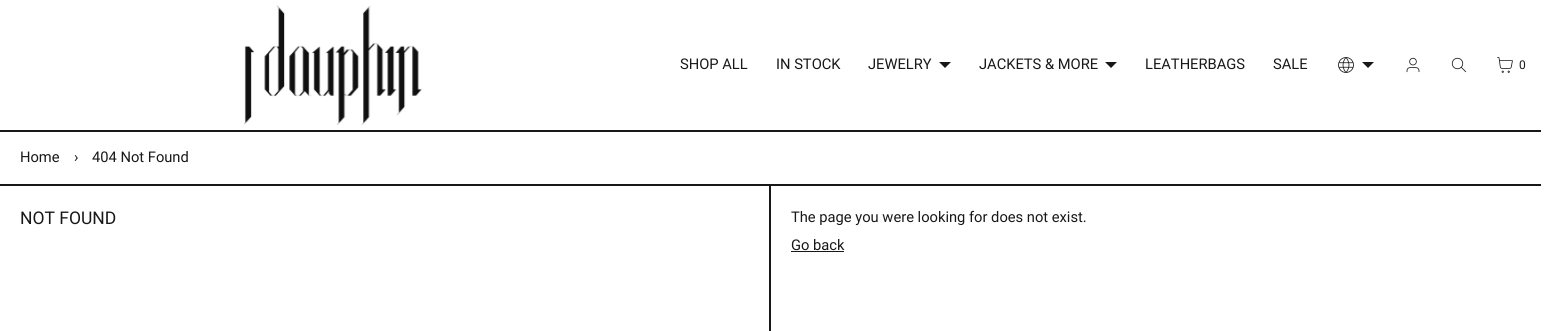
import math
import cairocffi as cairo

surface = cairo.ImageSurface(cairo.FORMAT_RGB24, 1556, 331)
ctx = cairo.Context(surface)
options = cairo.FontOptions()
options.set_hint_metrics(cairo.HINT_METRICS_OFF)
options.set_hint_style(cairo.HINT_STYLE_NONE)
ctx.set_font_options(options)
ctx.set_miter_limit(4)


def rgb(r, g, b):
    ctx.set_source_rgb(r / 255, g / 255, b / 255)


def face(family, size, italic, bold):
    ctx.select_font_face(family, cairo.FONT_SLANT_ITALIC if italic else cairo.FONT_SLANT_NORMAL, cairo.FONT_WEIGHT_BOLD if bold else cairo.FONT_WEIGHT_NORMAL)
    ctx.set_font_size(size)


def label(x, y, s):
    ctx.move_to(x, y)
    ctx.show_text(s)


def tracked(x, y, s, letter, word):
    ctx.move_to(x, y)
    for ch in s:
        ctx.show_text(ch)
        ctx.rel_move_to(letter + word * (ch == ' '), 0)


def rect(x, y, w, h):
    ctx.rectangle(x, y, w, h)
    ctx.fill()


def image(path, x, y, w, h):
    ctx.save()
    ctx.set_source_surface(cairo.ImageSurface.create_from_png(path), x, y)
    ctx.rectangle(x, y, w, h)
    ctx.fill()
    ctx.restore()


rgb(255, 255, 255)
ctx.paint()
rgb(24, 24, 24)
rect(0, 130, 1541, 2)
image('image0.png', 244, 5, 178, 120)
face('Roboto', 14.7, 0, 0)
label(680, 69, 'SHOP ALL')
label(776, 69, 'IN STOCK')
label(868, 69, 'JEWELRY')
ctx.new_path()
ctx.move_to(939, 62)
ctx.line_to(951, 62)
ctx.line_to(945, 68)
ctx.close_path()
ctx.fill()
label(979, 69, 'JACKETS & MORE')
ctx.new_path()
ctx.move_to(1105, 62)
ctx.line_to(1117, 62)
ctx.line_to(1111, 68)
ctx.close_path()
ctx.fill()
label(1145, 69, 'LEATHERBAGS')
label(1273, 69, 'SALE')
image('image1.png', 1338, 57, 16, 16)
ctx.new_path()
ctx.move_to(1362, 62)
ctx.line_to(1374, 62)
ctx.line_to(1368, 68)
ctx.close_path()
ctx.fill()
image('image2.png', 1406, 57, 14, 16)
image('image3.png', 1451, 57, 16, 16)
image('image4.png', 1497, 57, 16, 16)
face('Roboto', 12, 0, 0)
tracked(1519, 69, '0', 1, 0)
rect(0, 184, 1541, 2)
face('Roboto', 14.7, 0, 0)
label(20, 162, 'Home')
label(74, 162, '›')
label(92, 162, '404 Not Found')
rect(769, 186, 2, 145)
face('Roboto', 17.5, 0, 0)
label(20, 224, 'NOT FOUND')
face('Roboto', 14.7, 0, 0)
label(791, 222, 'The page you were looking for does not exist.')
label(791, 250, 'Go back')
rect(791, 251, 53, 1)
surface.write_to_png('render.png')
